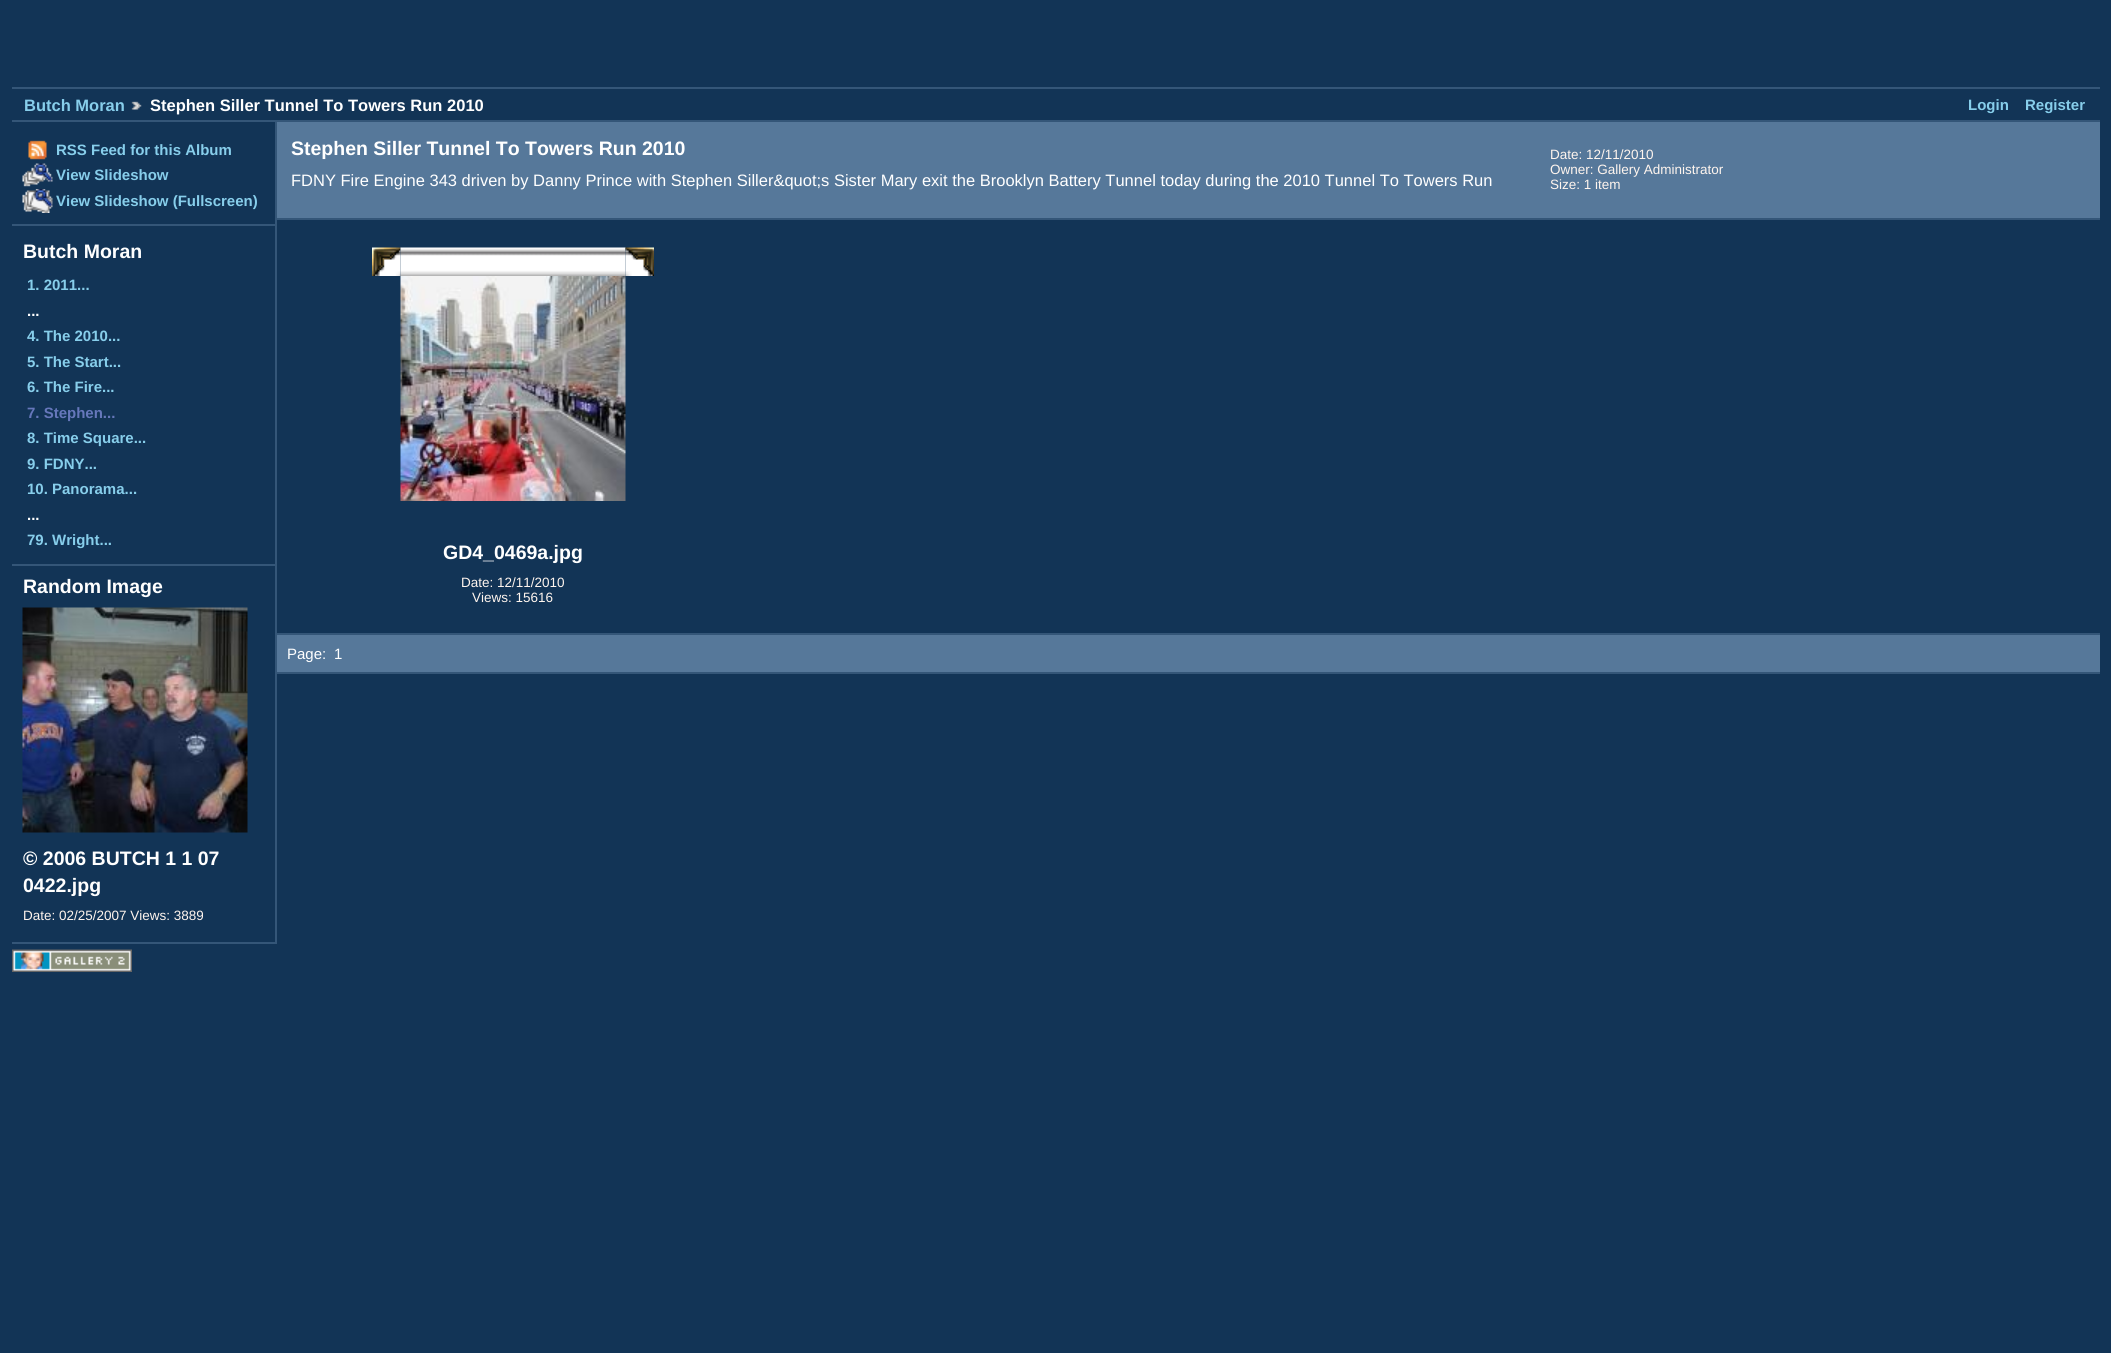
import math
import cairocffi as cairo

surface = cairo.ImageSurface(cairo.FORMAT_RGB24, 2111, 1353)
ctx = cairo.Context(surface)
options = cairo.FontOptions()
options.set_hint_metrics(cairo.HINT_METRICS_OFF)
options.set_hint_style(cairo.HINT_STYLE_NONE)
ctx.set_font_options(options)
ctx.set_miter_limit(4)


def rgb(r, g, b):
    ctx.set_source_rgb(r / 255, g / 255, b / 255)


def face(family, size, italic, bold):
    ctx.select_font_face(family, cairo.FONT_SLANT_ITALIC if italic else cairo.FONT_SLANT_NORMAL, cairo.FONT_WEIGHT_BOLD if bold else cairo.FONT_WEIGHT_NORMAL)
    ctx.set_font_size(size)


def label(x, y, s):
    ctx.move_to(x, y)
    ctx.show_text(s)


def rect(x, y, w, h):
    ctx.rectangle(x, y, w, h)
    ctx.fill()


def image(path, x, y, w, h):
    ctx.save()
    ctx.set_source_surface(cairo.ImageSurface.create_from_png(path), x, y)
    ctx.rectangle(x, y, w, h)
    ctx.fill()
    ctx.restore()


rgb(18, 52, 86)
ctx.paint()
rgb(52, 86, 120)
rect(12, 87, 2088, 2)
rect(12, 120, 2088, 2)
face('Liberation Sans', 16.5, 0, 1)
rgb(135, 206, 235)
label(24, 111, 'Butch Moran')
image('image0.png', 131, 101, 11, 9)
rgb(255, 255, 255)
label(150, 111, 'Stephen Siller Tunnel To Towers Run 2010')
face('Liberation Sans', 15, 0, 1)
rgb(135, 206, 235)
label(1968, 110, 'Login')
label(2025, 110, 'Register')
rgb(52, 86, 120)
rect(276, 218, 1824, 2)
rect(276, 633, 1824, 2)
rect(276, 672, 1824, 2)
rect(275, 122, 2, 822)
rect(12, 224, 263, 2)
image('image1.png', 28, 140, 19, 20)
rgb(135, 206, 235)
label(56, 155, 'RSS Feed for this Album')
image('image2.png', 22, 163, 31, 24)
label(56, 180, 'View Slideshow')
image('image3.png', 22, 189, 31, 24)
label(56, 206, 'View Slideshow (Fullscreen)')
rgb(52, 86, 120)
rect(12, 564, 263, 2)
face('Liberation Sans', 19.5, 0, 1)
rgb(255, 255, 255)
label(23, 258, 'Butch Moran')
face('Liberation Sans', 15, 0, 1)
rgb(135, 206, 235)
label(27, 290, '1. 2011...')
rgb(255, 255, 255)
label(27, 316, '...')
rgb(135, 206, 235)
label(27, 341, '4. The 2010...')
label(27, 367, '5. The Start...')
label(27, 392, '6. The Fire...')
rgb(102, 119, 187)
label(27, 418, '7. Stephen...')
rgb(135, 206, 235)
label(27, 443, '8. Time Square...')
label(27, 469, '9. FDNY...')
label(27, 494, '10. Panorama...')
rgb(255, 255, 255)
label(27, 520, '...')
rgb(135, 206, 235)
label(27, 545, '79. Wright...')
rgb(52, 86, 120)
rect(12, 942, 263, 2)
face('Liberation Sans', 19.5, 0, 1)
rgb(255, 255, 255)
label(23, 593, 'Random Image')
image('image4.png', 22, 607, 226, 226)
label(23, 865, '© 2006 BUTCH 1 1 07')
label(23, 892, '0422.jpg')
face('Liberation Sans', 13.5, 0, 0)
rgb(255, 245, 238)
label(23, 920, 'Date: 02/25/2007 Views: 3889')
rgb(86, 120, 154)
rect(277, 122, 1823, 96)
face('Liberation Sans', 19.5, 0, 1)
rgb(255, 255, 255)
label(291, 155, 'Stephen Siller Tunnel To Towers Run 2010')
face('Liberation Sans', 16.5, 0, 0)
label(291, 186, 'FDNY Fire Engine 343 driven by Danny Prince with Stephen Siller&quot;s Sister Mary exit the Brooklyn Battery Tunnel today during the 2010 Tunnel To Towers Run')
face('Liberation Sans', 13.5, 0, 0)
rgb(255, 245, 238)
label(1550, 159, 'Date: 12/11/2010')
label(1550, 174, 'Owner: Gallery Administrator')
label(1550, 189, 'Size: 1 item')
image('image5.png', 372, 247, 29, 29)
image('image6.png', 400, 247, 226, 29)
image('image7.png', 625, 247, 29, 29)
image('image8.png', 400, 276, 226, 225)
face('Liberation Sans', 19.5, 0, 1)
rgb(255, 255, 255)
label(443, 559, 'GD4_0469a.jpg')
face('Liberation Sans', 13.5, 0, 0)
rgb(255, 245, 238)
label(461, 587, 'Date: 12/11/2010')
label(472, 602, 'Views: 15616')
rgb(86, 120, 154)
rect(277, 635, 1823, 37)
face('Liberation Sans', 15, 0, 0)
rgb(255, 255, 255)
label(287, 659, 'Page:')
label(334, 659, '1')
image('image9.png', 12, 949, 120, 23)
surface.write_to_png('render.png')
